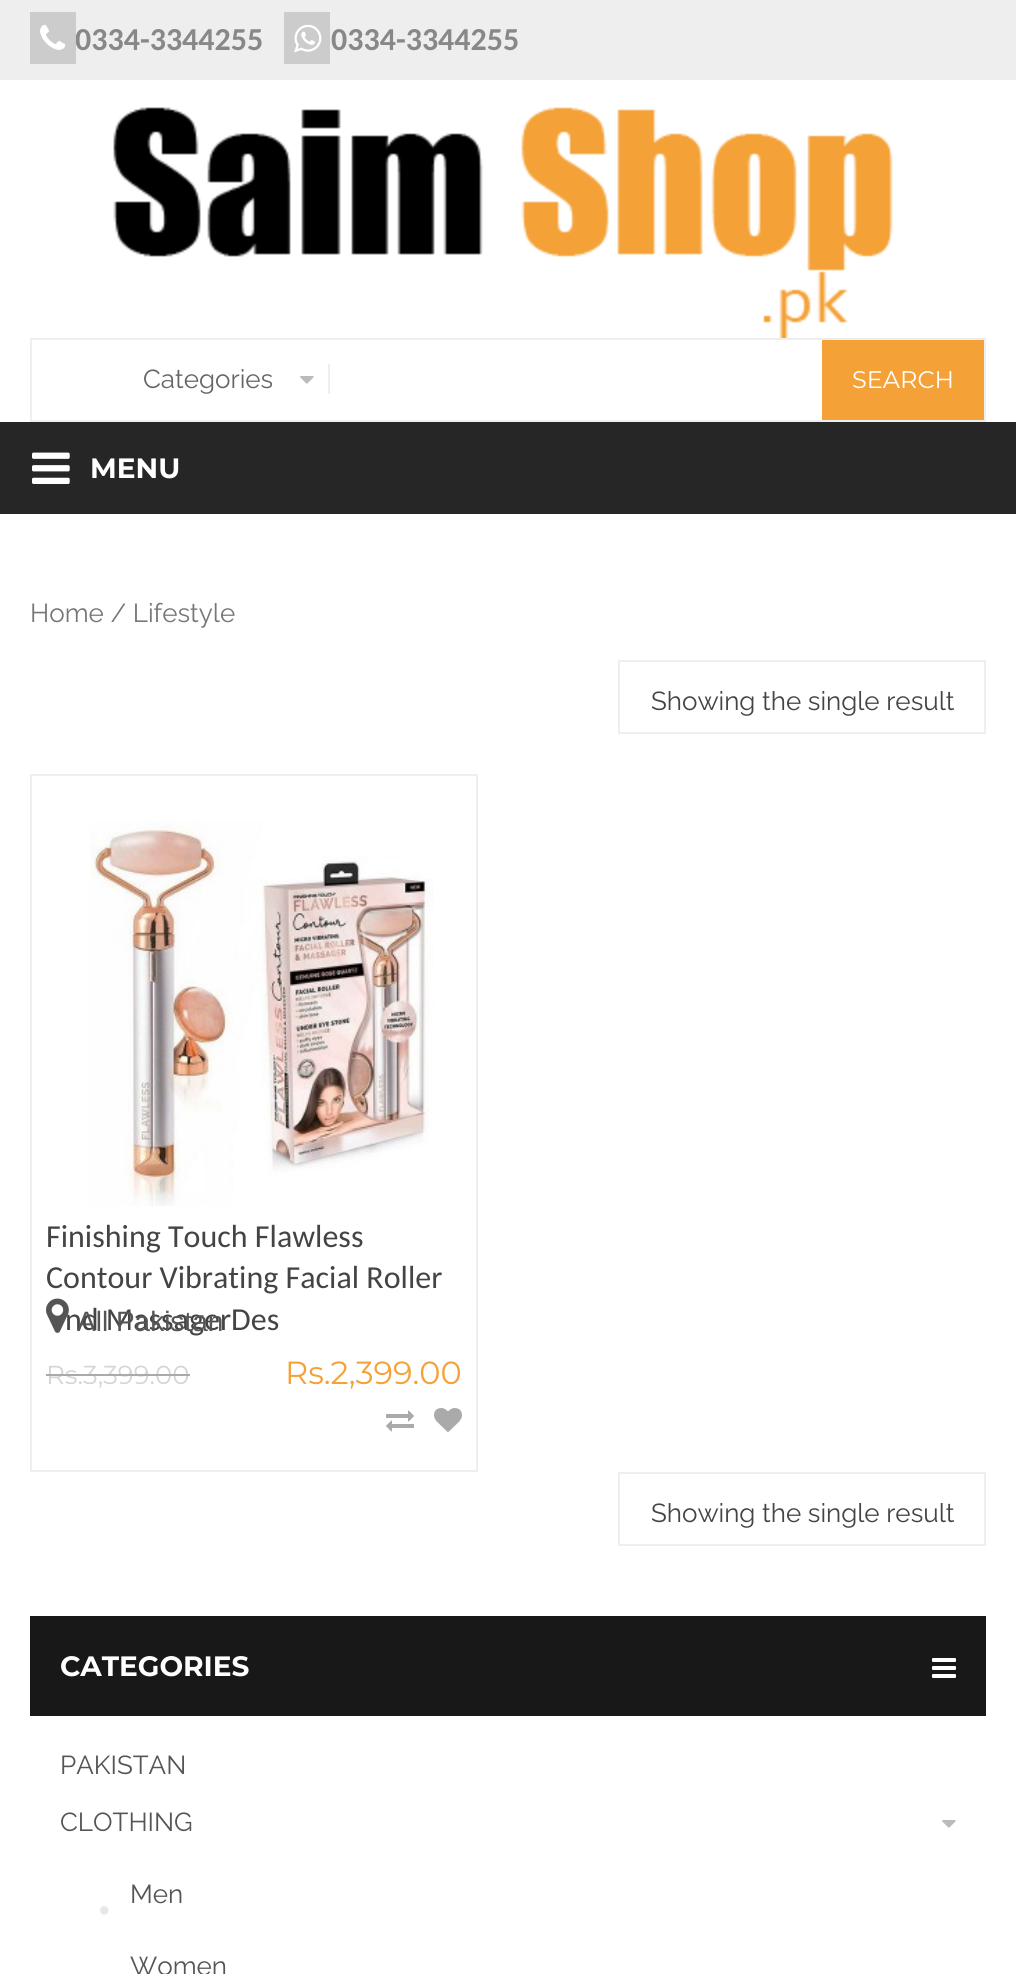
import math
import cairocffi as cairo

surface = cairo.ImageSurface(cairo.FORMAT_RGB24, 1016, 1974)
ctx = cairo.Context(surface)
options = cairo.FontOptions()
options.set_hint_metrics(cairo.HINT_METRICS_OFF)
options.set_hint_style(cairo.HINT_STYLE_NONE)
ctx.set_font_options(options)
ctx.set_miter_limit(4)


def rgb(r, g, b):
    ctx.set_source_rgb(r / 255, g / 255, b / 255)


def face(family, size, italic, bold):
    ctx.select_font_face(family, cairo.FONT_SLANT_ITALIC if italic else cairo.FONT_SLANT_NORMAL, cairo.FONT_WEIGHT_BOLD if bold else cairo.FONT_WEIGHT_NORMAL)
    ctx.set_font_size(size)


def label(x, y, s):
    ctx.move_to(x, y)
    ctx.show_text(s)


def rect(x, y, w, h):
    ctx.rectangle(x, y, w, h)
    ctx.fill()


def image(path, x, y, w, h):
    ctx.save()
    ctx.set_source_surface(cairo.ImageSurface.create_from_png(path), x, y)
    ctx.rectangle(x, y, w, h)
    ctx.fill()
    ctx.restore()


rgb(255, 255, 255)
ctx.paint()
rgb(238, 238, 238)
rect(0, 0, 1016, 80)
face('Carlito', 32, 0, 1)
rgb(136, 136, 136)
label(75, 50, '0334-3344255')
rgb(204, 204, 204)
rect(30, 12, 46, 52)
image('image0.png', 40, 24, 26, 26)
rect(284, 12, 46, 52)
image('image1.png', 294, 24, 28, 29)
rgb(136, 136, 136)
label(331, 50, '0334-3344255')
image('image2.png', 113, 107, 780, 231)
rgb(238, 238, 238)
rect(30, 338, 956, 84)
rgb(255, 255, 255)
rect(32, 340, 790, 80)
face('Raleway', 26, 0, 0)
rgb(102, 102, 102)
label(143, 388, 'Categories')
image('image3.png', 300, 376, 14, 8)
rgb(238, 238, 238)
rect(328, 364, 2, 30)
rgb(244, 161, 55)
rect(822, 340, 162, 80)
face('Montserrat', 24, 0, 0)
rgb(255, 255, 255)
label(852, 388, 'SEARCH')
rgb(38, 38, 38)
rect(0, 422, 1016, 92)
image('image4.png', 32, 452, 38, 32)
face('Montserrat', 28, 0, 1)
rgb(255, 255, 255)
label(90, 478, 'MENU')
face('Raleway', 26, 0, 0)
rgb(119, 119, 119)
label(30, 622, 'Home / Lifestyle')
ctx.rectangle(619, 661, 366, 72)
rgb(238, 238, 238)
ctx.stroke()
rgb(68, 68, 68)
label(651, 710, 'Showing the single result')
ctx.rectangle(31, 775, 446, 696)
rgb(238, 238, 238)
ctx.stroke()
image('image5.png', 90, 821, 344, 385)
face('Carlito', 32, 0, 0)
rgb(68, 68, 68)
label(46, 1247, 'Finishing Touch Flawless')
label(46, 1288, 'Contour Vibrating Facial Roller')
label(65, 1330, 'nd MassagerDes')
image('image6.png', 46, 1298, 23, 35)
face('Liberation Sans', 28, 0, 0)
rgb(85, 85, 85)
label(77, 1331, 'All Pakistan')
face('Montserrat', 26, 0, 0)
rgb(213, 213, 213)
label(46, 1384, 'Rs.3,399.00')
rgb(170, 170, 170)
rect(46, 1374, 144, 2)
face('Montserrat', 32, 0, 0)
rgb(244, 161, 55)
label(285, 1384, 'Rs.2,399.00')
image('image7.png', 386, 1410, 28, 22)
image('image8.png', 434, 1408, 28, 24)
ctx.rectangle(619, 1473, 366, 72)
rgb(238, 238, 238)
ctx.stroke()
face('Raleway', 26, 0, 0)
rgb(68, 68, 68)
label(651, 1522, 'Showing the single result')
rgb(24, 24, 24)
rect(30, 1616, 956, 100)
face('Montserrat', 28, 0, 1)
rgb(255, 255, 255)
label(60, 1676, 'CATEGORIES')
image('image9.png', 932, 1658, 24, 20)
face('Raleway', 26, 0, 0)
rgb(85, 85, 85)
label(60, 1774, 'PAKISTAN')
label(60, 1831, 'CLOTHING')
image('image3.png', 942, 1820, 14, 8)
label(130, 1903, 'Men')
image('image10.png', 100, 1906, 9, 9)
label(130, 1975, 'Women')
surface.write_to_png('render.png')
